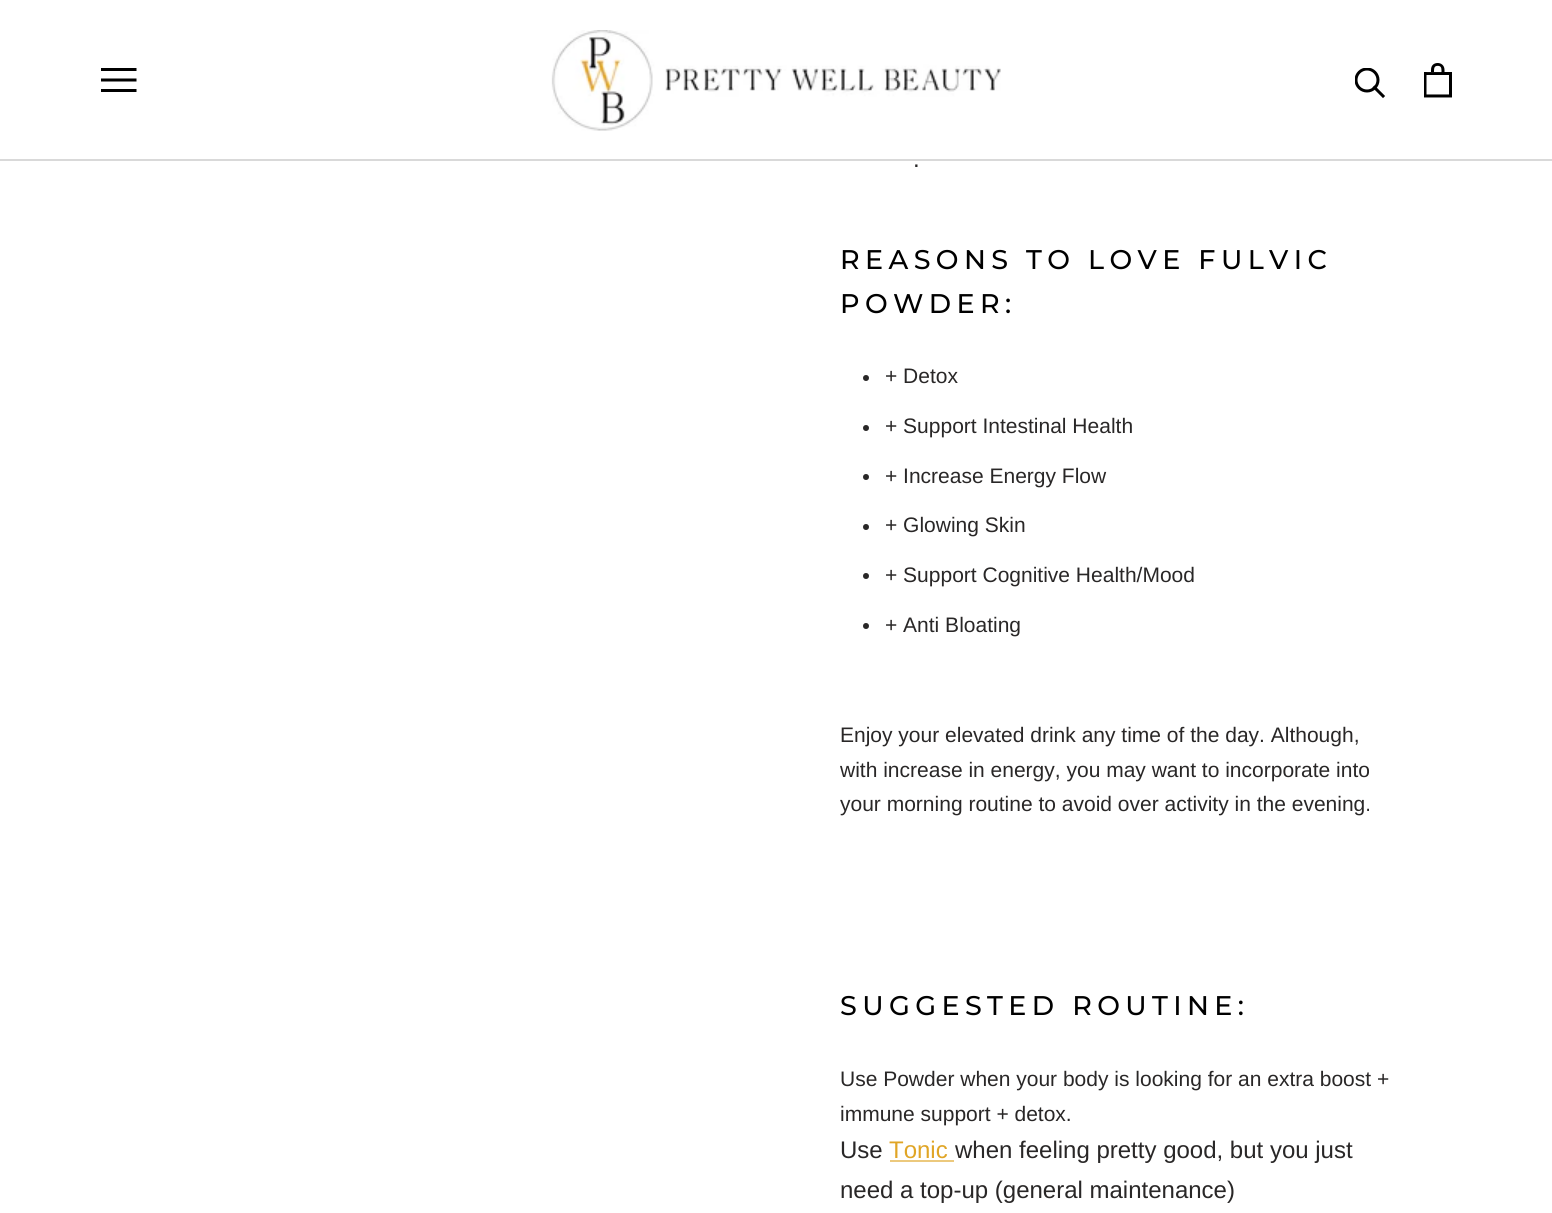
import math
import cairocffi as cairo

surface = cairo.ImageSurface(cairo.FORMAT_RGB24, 1552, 1213)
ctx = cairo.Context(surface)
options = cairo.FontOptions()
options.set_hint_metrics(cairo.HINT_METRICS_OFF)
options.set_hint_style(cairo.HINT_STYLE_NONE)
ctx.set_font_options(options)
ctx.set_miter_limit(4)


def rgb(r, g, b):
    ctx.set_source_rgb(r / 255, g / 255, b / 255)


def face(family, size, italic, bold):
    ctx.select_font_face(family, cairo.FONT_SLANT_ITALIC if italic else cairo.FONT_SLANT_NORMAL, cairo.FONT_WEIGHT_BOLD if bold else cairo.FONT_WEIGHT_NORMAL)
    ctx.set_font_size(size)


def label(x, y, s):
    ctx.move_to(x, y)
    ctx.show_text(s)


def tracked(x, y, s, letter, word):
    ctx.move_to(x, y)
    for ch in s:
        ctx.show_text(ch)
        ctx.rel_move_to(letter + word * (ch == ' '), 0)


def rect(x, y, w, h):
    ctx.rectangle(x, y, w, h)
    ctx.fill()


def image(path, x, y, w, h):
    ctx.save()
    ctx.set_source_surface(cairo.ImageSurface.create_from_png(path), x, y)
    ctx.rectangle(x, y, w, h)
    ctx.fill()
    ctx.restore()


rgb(255, 255, 255)
ctx.paint()
rgb(217, 217, 217)
rect(0, 159, 1552, 2)
ctx.save()
ctx.rectangle(101, 68, 36, 25)
ctx.clip()
rgb(0, 0, 0)
ctx.new_path()
ctx.move_to(100.5, 92)
ctx.line_to(100.5, 89)
ctx.line_to(136.5, 89)
ctx.line_to(136.5, 92)
ctx.close_path()
ctx.move_to(100.5, 78.5)
ctx.line_to(136.5, 78.5)
ctx.line_to(136.5, 81.5)
ctx.line_to(100.5, 81.5)
ctx.close_path()
ctx.move_to(100.5, 68)
ctx.line_to(136.5, 68)
ctx.line_to(136.5, 71)
ctx.line_to(100.5, 71)
ctx.close_path()
ctx.fill()
ctx.restore()
image('image0.png', 551, 30, 450, 101)
ctx.new_path()
ctx.move_to(1383, 96)
ctx.line_to(1374.5, 87.5)
rgb(0, 0, 0)
ctx.set_line_width(3)
ctx.set_line_cap(cairo.LINE_CAP_SQUARE)
ctx.stroke()
ctx.save()
ctx.rectangle(1355, 68, 31, 31)
ctx.clip()
ctx.arc(1367, 80, 11, 0, 2 * math.pi)
ctx.set_line_cap(cairo.LINE_CAP_BUTT)
ctx.stroke()
ctx.restore()
image('image1.png', 1424, 63, 28, 35)
face('Liberation Sans', 24, 0, 0)
rgb(41, 39, 39)
label(913, 167, '.')
face('Montserrat Medium', 27, 0, 0)
rgb(0, 0, 0)
tracked(840, 269, 'REASONS TO LOVE FULVIC', 5.4, 0)
tracked(840, 313, 'POWDER:', 5.4, 0)
rgb(41, 39, 39)
ctx.new_path()
ctx.arc(866, 378, 3, 0, 2 * math.pi)
ctx.fill()
face('Liberation Sans', 21, 0, 0)
label(885, 383, '+ Detox')
ctx.new_path()
ctx.arc(866, 428, 3, 0, 2 * math.pi)
ctx.fill()
label(885, 433, '+ Support Intestinal Health')
ctx.new_path()
ctx.arc(866, 477, 3, 0, 2 * math.pi)
ctx.fill()
label(885, 483, '+ Increase Energy Flow')
ctx.new_path()
ctx.arc(866, 527, 3, 0, 2 * math.pi)
ctx.fill()
label(885, 532, '+ Glowing Skin')
ctx.new_path()
ctx.arc(866, 576, 3, 0, 2 * math.pi)
ctx.fill()
label(885, 582, '+ Support Cognitive Health/Mood')
ctx.new_path()
ctx.arc(866, 626, 3, 0, 2 * math.pi)
ctx.fill()
label(885, 632, '+ Anti Bloating')
label(840, 742, 'Enjoy your elevated drink any time of the day. Although,')
label(840, 777, 'with increase in energy, you may want to incorporate into')
label(840, 811, 'your morning routine to avoid over activity in the evening.')
face('Montserrat Medium', 27, 0, 0)
rgb(0, 0, 0)
tracked(840, 1015, 'SUGGESTED ROUTINE:', 5.4, 0)
face('Liberation Sans', 21, 0, 0)
rgb(41, 39, 39)
label(840, 1086, 'Use Powder when your body is looking for an extra boost +')
label(840, 1121, 'immune support + detox.')
face('Liberation Sans', 24, 0, 0)
label(840, 1158, 'Use')
rgb(224, 165, 38)
label(889, 1158, 'Tonic')
rgb(236, 201, 125)
rect(890, 1160, 64, 2)
rgb(41, 39, 39)
label(955, 1158, 'when feeling pretty good, but you just')
label(840, 1198, 'need a top-up (general maintenance)')
surface.write_to_png('render.png')
